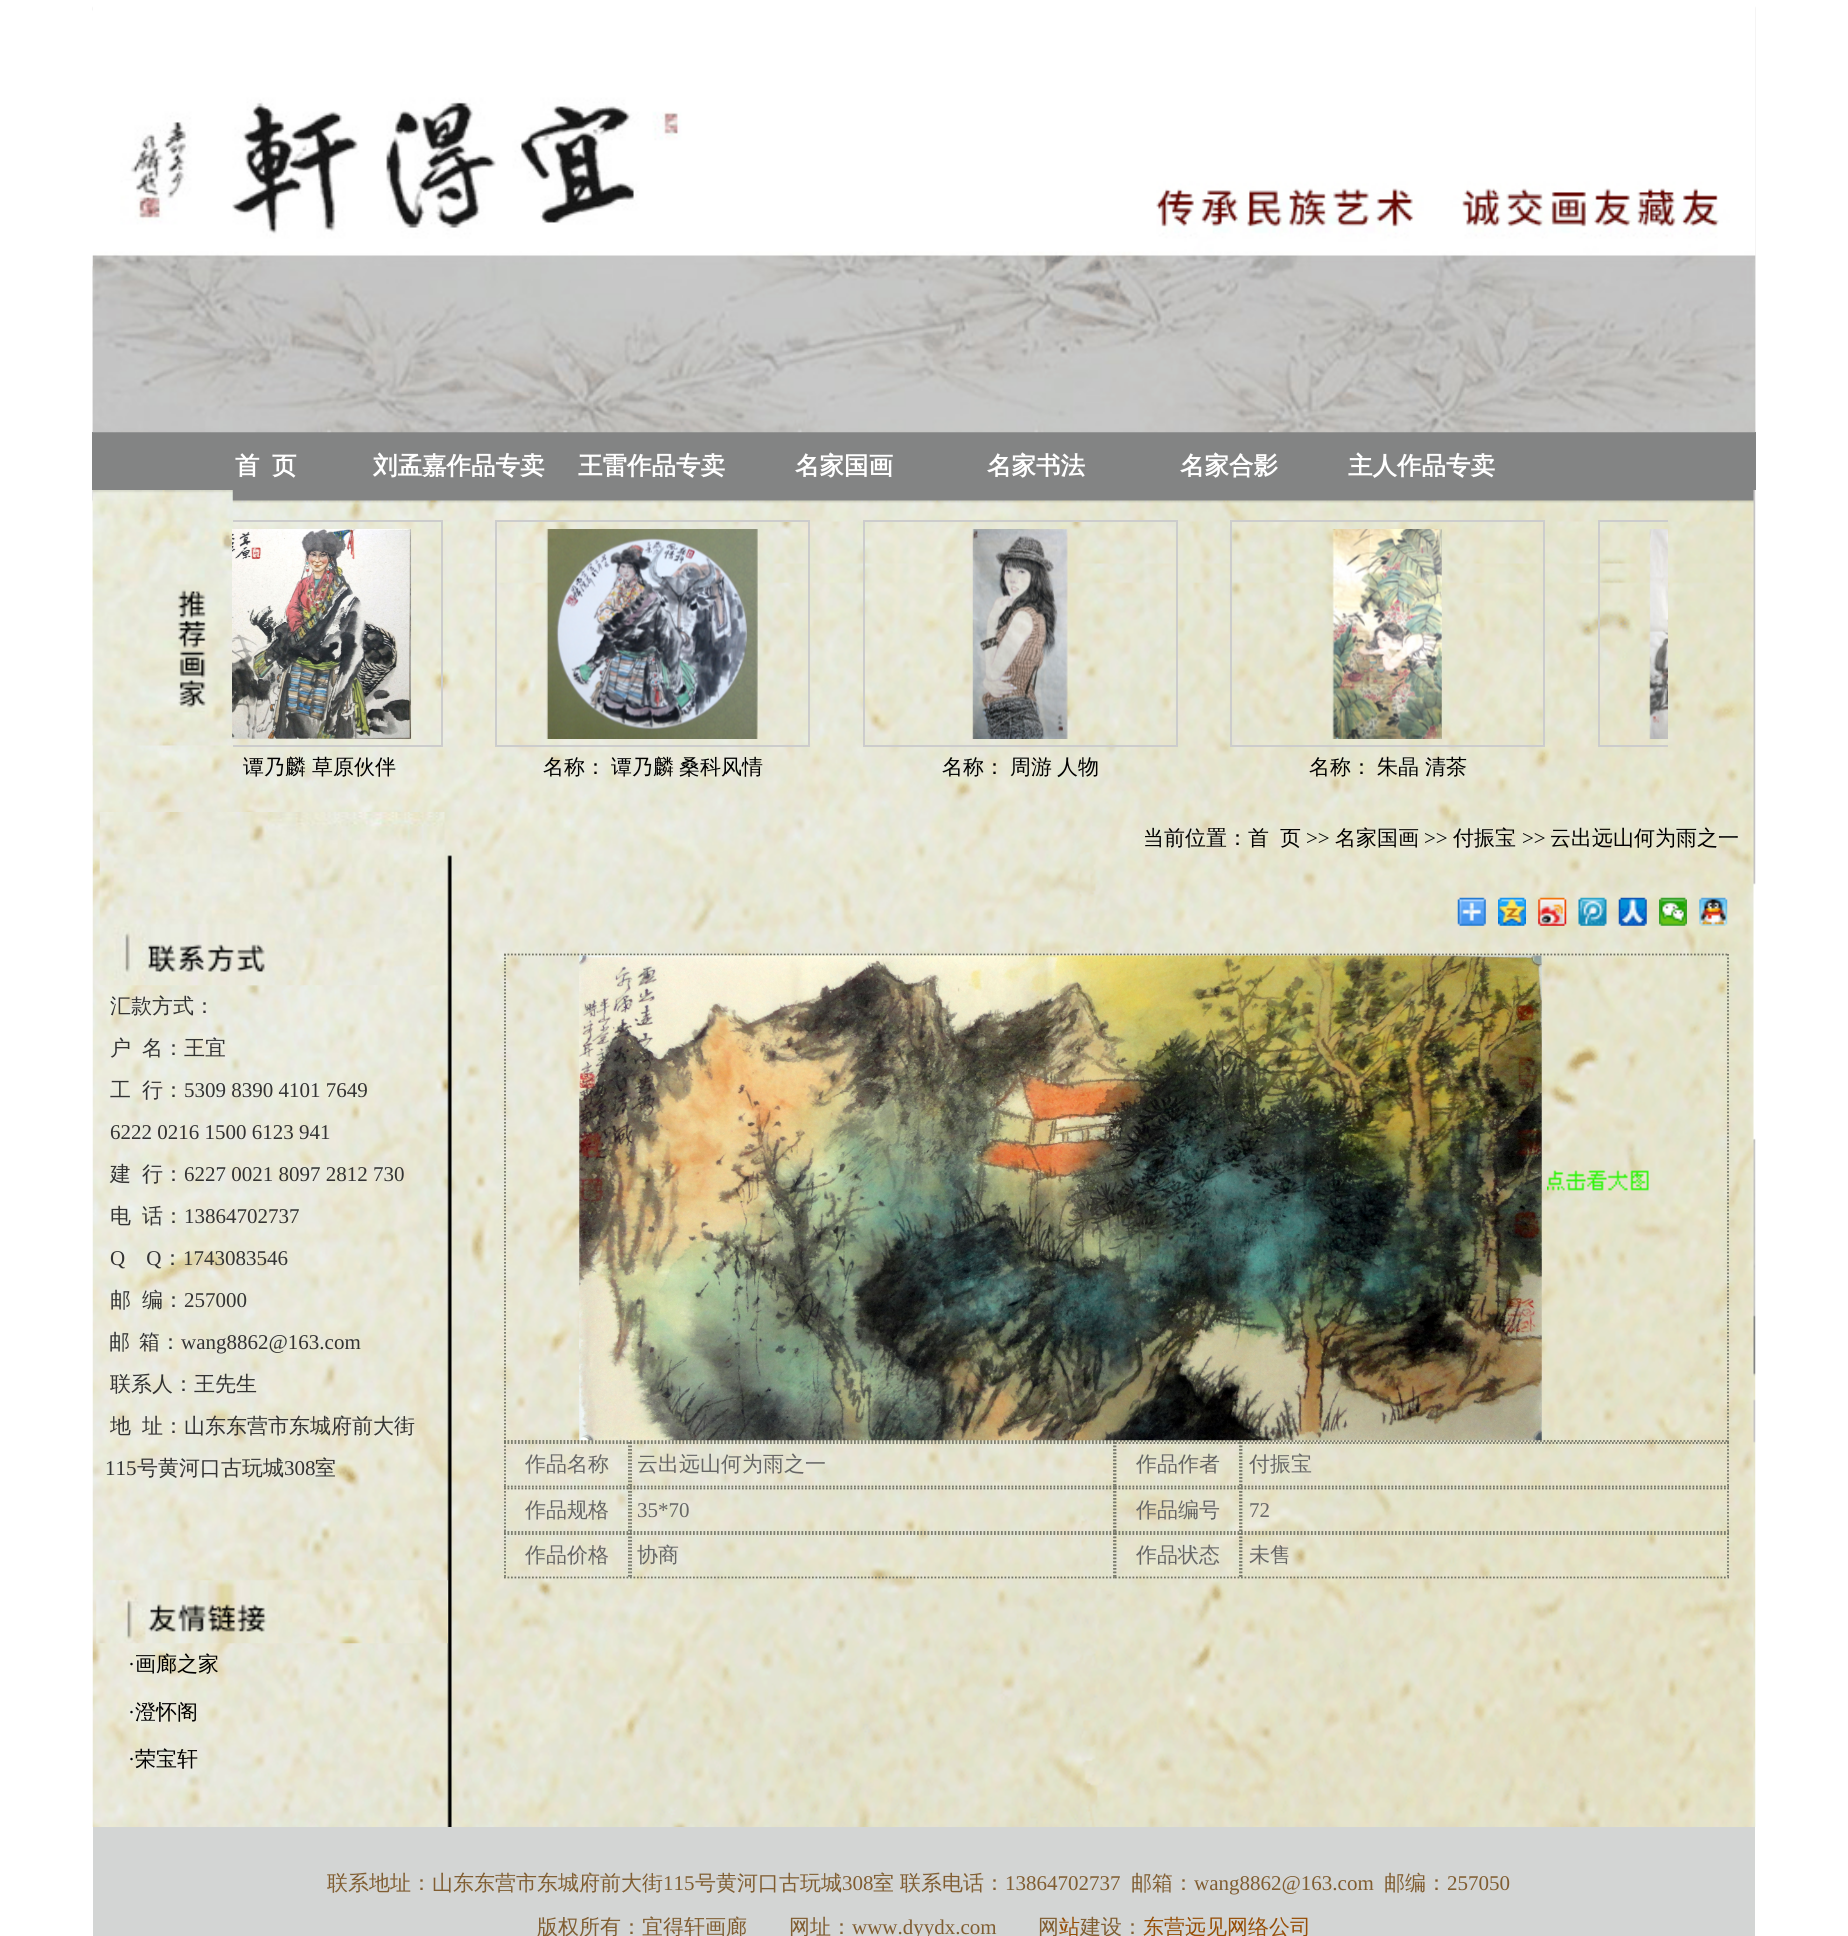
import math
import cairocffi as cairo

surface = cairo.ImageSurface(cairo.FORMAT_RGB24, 1848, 1936)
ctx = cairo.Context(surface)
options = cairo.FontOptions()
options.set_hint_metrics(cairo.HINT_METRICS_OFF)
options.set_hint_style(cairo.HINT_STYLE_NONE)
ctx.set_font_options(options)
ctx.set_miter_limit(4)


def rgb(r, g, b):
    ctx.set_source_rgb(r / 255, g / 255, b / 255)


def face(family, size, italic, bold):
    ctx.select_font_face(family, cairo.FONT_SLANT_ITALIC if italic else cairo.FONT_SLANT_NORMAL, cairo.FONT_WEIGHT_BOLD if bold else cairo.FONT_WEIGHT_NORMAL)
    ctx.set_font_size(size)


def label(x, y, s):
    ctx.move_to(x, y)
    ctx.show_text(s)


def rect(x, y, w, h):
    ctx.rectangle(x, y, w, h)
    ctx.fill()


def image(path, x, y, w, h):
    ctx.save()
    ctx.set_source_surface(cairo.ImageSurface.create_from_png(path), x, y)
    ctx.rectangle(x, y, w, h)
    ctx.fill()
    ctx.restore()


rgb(255, 255, 255)
ctx.paint()
image('image0.png', 92, 6, 1664, 1821)
rgb(131, 132, 132)
rect(92, 432, 1664, 58)
image('image1.png', 92, 6, 1664, 427)
face('WenQuanYi Zen Hei', 24.5, 0, 1)
rgb(255, 255, 255)
label(235, 474, '首')
label(272, 474, '页')
label(373, 474, '刘孟嘉作品专卖')
label(578, 474, '王雷作品专卖')
label(795, 474, '名家国画')
label(987, 474, '名家书法')
label(1180, 474, '名家合影')
label(1348, 474, '主人作品专卖')
image('image2.png', 92, 490, 141, 256)
ctx.save()
ctx.rectangle(233, 490, 1435, 308)
ctx.clip()
ctx.rectangle(1599, 521, 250, 225)
rgb(204, 204, 204)
ctx.stroke()
ctx.restore()
image('image3.png', 1649, 529, 19, 210)
ctx.save()
ctx.rectangle(233, 490, 1435, 308)
ctx.clip()
ctx.rectangle(129, 521, 313, 225)
rgb(204, 204, 204)
ctx.stroke()
ctx.restore()
image('image4.png', 232, 529, 180, 210)
face('WenQuanYi Zen Hei Medium', 21, 0, 0)
rgb(0, 0, 0)
label(243, 774, '谭乃麟')
label(312, 774, '草原伙伴')
ctx.rectangle(496, 521, 313, 225)
rgb(204, 204, 204)
ctx.stroke()
image('image5.png', 546, 529, 212, 210)
rgb(0, 0, 0)
label(543, 774, '名称：')
label(611, 774, '谭乃麟')
label(679, 774, '桑科风情')
ctx.rectangle(864, 521, 313, 225)
rgb(204, 204, 204)
ctx.stroke()
image('image6.png', 972, 529, 96, 210)
rgb(0, 0, 0)
label(942, 774, '名称：')
label(1010, 774, '周游')
label(1057, 774, '人物')
ctx.rectangle(1231, 521, 313, 225)
rgb(204, 204, 204)
ctx.stroke()
image('image7.png', 1332, 529, 110, 210)
rgb(0, 0, 0)
label(1309, 774, '名称：')
label(1377, 774, '朱晶')
label(1425, 774, '清茶')
image('image8.png', 99, 812, 346, 174)
rgb(51, 51, 51)
label(110, 1013, '汇款方式：')
label(110, 1055, '户')
label(142, 1055, '名：王宜')
label(110, 1097, '工')
label(142, 1097, '行：')
face('Liberation Serif', 21, 0, 0)
label(184, 1097, '5309 8390 4101 7649')
label(110, 1139, '6222 0216 1500 6123 941')
face('WenQuanYi Zen Hei Medium', 21, 0, 0)
label(110, 1181, '建')
label(142, 1181, '行：')
face('Liberation Serif', 21, 0, 0)
label(184, 1181, '6227 0021 8097 2812 730')
face('WenQuanYi Zen Hei Medium', 21, 0, 0)
label(110, 1223, '电')
label(142, 1223, '话：')
face('Liberation Serif', 21, 0, 0)
label(184, 1223, '13864702737')
label(110, 1265, 'Q    Q')
face('WenQuanYi Zen Hei Medium', 21, 0, 0)
label(162, 1265, '：')
face('Liberation Serif', 21, 0, 0)
label(183, 1265, '1743083546')
face('WenQuanYi Zen Hei Medium', 21, 0, 0)
label(110, 1307, '邮')
label(142, 1307, '编：')
face('Liberation Serif', 21, 0, 0)
label(184, 1307, '257000')
face('WenQuanYi Zen Hei Medium', 21, 0, 0)
label(109, 1349, '邮')
label(139, 1349, '箱：')
face('Liberation Serif', 21, 0, 0)
label(181, 1349, 'wang8862@163.com')
face('WenQuanYi Zen Hei Medium', 21, 0, 0)
label(110, 1391, '联系人：王先生')
label(110, 1433, '地')
label(142, 1433, '址：山东东营市东城府前大街')
face('Liberation Serif', 21, 0, 0)
label(105, 1475, '115')
face('WenQuanYi Zen Hei Medium', 21, 0, 0)
label(137, 1475, '号黄河口古玩城')
face('Liberation Serif', 21, 0, 0)
label(284, 1475, '308')
face('WenQuanYi Zen Hei Medium', 21, 0, 0)
label(315, 1475, '室')
image('image9.png', 96, 1580, 352, 64)
face('Liberation Serif', 21, 0, 0)
rgb(0, 0, 0)
label(128, 1671, '·')
face('WenQuanYi Zen Hei Medium', 21, 0, 0)
label(135, 1671, '画廊之家')
face('Liberation Serif', 21, 0, 0)
label(128, 1719, '·')
face('WenQuanYi Zen Hei Medium', 21, 0, 0)
label(135, 1719, '澄怀阁')
face('Liberation Serif', 21, 0, 0)
label(128, 1766, '·')
face('WenQuanYi Zen Hei Medium', 21, 0, 0)
label(135, 1766, '荣宝轩')
label(1143, 845, '当前位置：首')
label(1280, 845, '页')
face('Liberation Serif', 21, 0, 0)
label(1306, 845, '>>')
face('WenQuanYi Zen Hei Medium', 21, 0, 0)
label(1335, 845, '名家国画')
face('Liberation Serif', 21, 0, 0)
label(1424, 845, '>>')
face('WenQuanYi Zen Hei Medium', 21, 0, 0)
label(1453, 845, '付振宝')
face('Liberation Serif', 21, 0, 0)
label(1522, 845, '>>')
face('WenQuanYi Zen Hei Medium', 21, 0, 0)
label(1550, 845, '云出远山何为雨之一')
image('image10.png', 1457, 897, 29, 29)
image('image11.png', 1498, 897, 28, 29)
image('image12.png', 1538, 897, 29, 29)
image('image13.png', 1578, 897, 29, 29)
image('image14.png', 1618, 897, 29, 29)
image('image15.png', 1659, 897, 28, 29)
image('image16.png', 1699, 897, 29, 29)
ctx.new_path()
ctx.move_to(504, 954.5)
ctx.line_to(1729, 954.5)
rgb(114, 116, 102)
ctx.set_line_width(1.8)
ctx.set_dash([1.75, 1.75])
ctx.stroke()
ctx.new_path()
ctx.move_to(1728, 954)
ctx.line_to(1728, 1442)
ctx.stroke()
ctx.new_path()
ctx.move_to(504, 1441)
ctx.line_to(1729, 1441)
ctx.stroke()
ctx.new_path()
ctx.move_to(505, 954)
ctx.line_to(505, 1442)
ctx.stroke()
image('image17.png', 579, 955, 963, 486)
image('image18.png', 1547, 1170, 102, 21)
ctx.new_path()
ctx.move_to(504, 1443)
ctx.line_to(630, 1443)
ctx.stroke()
ctx.new_path()
ctx.move_to(629, 1442)
ctx.line_to(629, 1487.5)
ctx.stroke()
ctx.new_path()
ctx.move_to(504, 1486.5)
ctx.line_to(630, 1486.5)
ctx.stroke()
ctx.new_path()
ctx.move_to(505, 1442)
ctx.line_to(505, 1487.5)
ctx.stroke()
rgb(102, 102, 102)
label(525, 1471, '作品名称')
ctx.new_path()
ctx.move_to(630, 1443)
ctx.line_to(1115, 1443)
rgb(114, 116, 102)
ctx.stroke()
ctx.new_path()
ctx.move_to(1114, 1442)
ctx.line_to(1114, 1487.5)
ctx.stroke()
ctx.new_path()
ctx.move_to(630, 1486.5)
ctx.line_to(1115, 1486.5)
ctx.stroke()
ctx.new_path()
ctx.move_to(631, 1442)
ctx.line_to(631, 1487.5)
ctx.stroke()
rgb(102, 102, 102)
label(637, 1471, '云出远山何为雨之一')
ctx.new_path()
ctx.move_to(1115, 1443)
ctx.line_to(1241, 1443)
rgb(114, 116, 102)
ctx.stroke()
ctx.new_path()
ctx.move_to(1240, 1442)
ctx.line_to(1240, 1487.5)
ctx.stroke()
ctx.new_path()
ctx.move_to(1115, 1486.5)
ctx.line_to(1241, 1486.5)
ctx.stroke()
ctx.new_path()
ctx.move_to(1115.5, 1442)
ctx.line_to(1115.5, 1487.5)
ctx.stroke()
rgb(102, 102, 102)
label(1136, 1471, '作品作者')
ctx.new_path()
ctx.move_to(1241, 1443)
ctx.line_to(1729, 1443)
rgb(114, 116, 102)
ctx.stroke()
ctx.new_path()
ctx.move_to(1728, 1442)
ctx.line_to(1728, 1487.5)
ctx.stroke()
ctx.new_path()
ctx.move_to(1241, 1486.5)
ctx.line_to(1729, 1486.5)
ctx.stroke()
ctx.new_path()
ctx.move_to(1241.5, 1442)
ctx.line_to(1241.5, 1487.5)
ctx.stroke()
rgb(102, 102, 102)
label(1249, 1471, '付振宝')
ctx.new_path()
ctx.move_to(504, 1488.5)
ctx.line_to(630, 1488.5)
rgb(114, 116, 102)
ctx.stroke()
ctx.new_path()
ctx.move_to(629, 1487.5)
ctx.line_to(629, 1533)
ctx.stroke()
ctx.new_path()
ctx.move_to(504, 1532)
ctx.line_to(630, 1532)
ctx.stroke()
ctx.new_path()
ctx.move_to(505, 1487.5)
ctx.line_to(505, 1533)
ctx.stroke()
rgb(102, 102, 102)
label(525, 1517, '作品规格')
ctx.new_path()
ctx.move_to(630, 1488.5)
ctx.line_to(1115, 1488.5)
rgb(114, 116, 102)
ctx.stroke()
ctx.new_path()
ctx.move_to(1114, 1487.5)
ctx.line_to(1114, 1533)
ctx.stroke()
ctx.new_path()
ctx.move_to(630, 1532)
ctx.line_to(1115, 1532)
ctx.stroke()
ctx.new_path()
ctx.move_to(631, 1487.5)
ctx.line_to(631, 1533)
ctx.stroke()
face('Liberation Serif', 21, 0, 0)
rgb(102, 102, 102)
label(637, 1517, '35*70')
ctx.new_path()
ctx.move_to(1115, 1488.5)
ctx.line_to(1241, 1488.5)
rgb(114, 116, 102)
ctx.stroke()
ctx.new_path()
ctx.move_to(1240, 1487.5)
ctx.line_to(1240, 1533)
ctx.stroke()
ctx.new_path()
ctx.move_to(1115, 1532)
ctx.line_to(1241, 1532)
ctx.stroke()
ctx.new_path()
ctx.move_to(1115.5, 1487.5)
ctx.line_to(1115.5, 1533)
ctx.stroke()
face('WenQuanYi Zen Hei Medium', 21, 0, 0)
rgb(102, 102, 102)
label(1136, 1517, '作品编号')
ctx.new_path()
ctx.move_to(1241, 1488.5)
ctx.line_to(1729, 1488.5)
rgb(114, 116, 102)
ctx.stroke()
ctx.new_path()
ctx.move_to(1728, 1487.5)
ctx.line_to(1728, 1533)
ctx.stroke()
ctx.new_path()
ctx.move_to(1241, 1532)
ctx.line_to(1729, 1532)
ctx.stroke()
ctx.new_path()
ctx.move_to(1241.5, 1487.5)
ctx.line_to(1241.5, 1533)
ctx.stroke()
face('Liberation Serif', 21, 0, 0)
rgb(102, 102, 102)
label(1249, 1517, '72')
ctx.new_path()
ctx.move_to(504, 1534)
ctx.line_to(630, 1534)
rgb(114, 116, 102)
ctx.stroke()
ctx.new_path()
ctx.move_to(629, 1533)
ctx.line_to(629, 1578.5)
ctx.stroke()
ctx.new_path()
ctx.move_to(504, 1577.5)
ctx.line_to(630, 1577.5)
ctx.stroke()
ctx.new_path()
ctx.move_to(505, 1533)
ctx.line_to(505, 1578.5)
ctx.stroke()
face('WenQuanYi Zen Hei Medium', 21, 0, 0)
rgb(102, 102, 102)
label(525, 1562, '作品价格')
ctx.new_path()
ctx.move_to(630, 1534)
ctx.line_to(1115, 1534)
rgb(114, 116, 102)
ctx.stroke()
ctx.new_path()
ctx.move_to(1114, 1533)
ctx.line_to(1114, 1578.5)
ctx.stroke()
ctx.new_path()
ctx.move_to(630, 1577.5)
ctx.line_to(1115, 1577.5)
ctx.stroke()
ctx.new_path()
ctx.move_to(631, 1533)
ctx.line_to(631, 1578.5)
ctx.stroke()
rgb(102, 102, 102)
label(637, 1562, '协商')
ctx.new_path()
ctx.move_to(1115, 1534)
ctx.line_to(1241, 1534)
rgb(114, 116, 102)
ctx.stroke()
ctx.new_path()
ctx.move_to(1240, 1533)
ctx.line_to(1240, 1578.5)
ctx.stroke()
ctx.new_path()
ctx.move_to(1115, 1577.5)
ctx.line_to(1241, 1577.5)
ctx.stroke()
ctx.new_path()
ctx.move_to(1115.5, 1533)
ctx.line_to(1115.5, 1578.5)
ctx.stroke()
rgb(102, 102, 102)
label(1136, 1562, '作品状态')
ctx.new_path()
ctx.move_to(1241, 1534)
ctx.line_to(1729, 1534)
rgb(114, 116, 102)
ctx.stroke()
ctx.new_path()
ctx.move_to(1728, 1533)
ctx.line_to(1728, 1578.5)
ctx.stroke()
ctx.new_path()
ctx.move_to(1241, 1577.5)
ctx.line_to(1729, 1577.5)
ctx.stroke()
ctx.new_path()
ctx.move_to(1241.5, 1533)
ctx.line_to(1241.5, 1578.5)
ctx.stroke()
rgb(102, 102, 102)
label(1249, 1562, '未售')
rgb(211, 213, 212)
rect(93, 1827, 1662, 109)
rgb(128, 93, 49)
label(327, 1890, '联系地址：山东东营市东城府前大街')
face('Liberation Serif', 21, 0, 0)
label(663, 1890, '115')
face('WenQuanYi Zen Hei Medium', 21, 0, 0)
label(695, 1890, '号黄河口古玩城')
face('Liberation Serif', 21, 0, 0)
label(842, 1890, '308')
face('WenQuanYi Zen Hei Medium', 21, 0, 0)
label(873, 1890, '室')
label(900, 1890, '联系电话：')
face('Liberation Serif', 21, 0, 0)
label(1005, 1890, '13864702737')
face('WenQuanYi Zen Hei Medium', 21, 0, 0)
label(1131, 1890, '邮箱：')
face('Liberation Serif', 21, 0, 0)
label(1194, 1890, 'wang8862@163.com')
face('WenQuanYi Zen Hei Medium', 21, 0, 0)
label(1384, 1890, '邮编：')
face('Liberation Serif', 21, 0, 0)
label(1447, 1890, '257050')
face('WenQuanYi Zen Hei Medium', 21, 0, 0)
label(537, 1934, '版权所有：宜得轩画廊　　网址：')
face('Liberation Serif', 21, 0, 0)
label(852, 1934, 'www.dyydx.com')
face('WenQuanYi Zen Hei Medium', 21, 0, 0)
label(1038, 1934, '网')
rgb(150, 77, 5)
label(1059, 1934, '站')
rgb(128, 93, 49)
label(1080, 1934, '建设：')
rgb(150, 77, 5)
label(1143, 1934, '东营远见网络公司')
surface.write_to_png('render.png')
